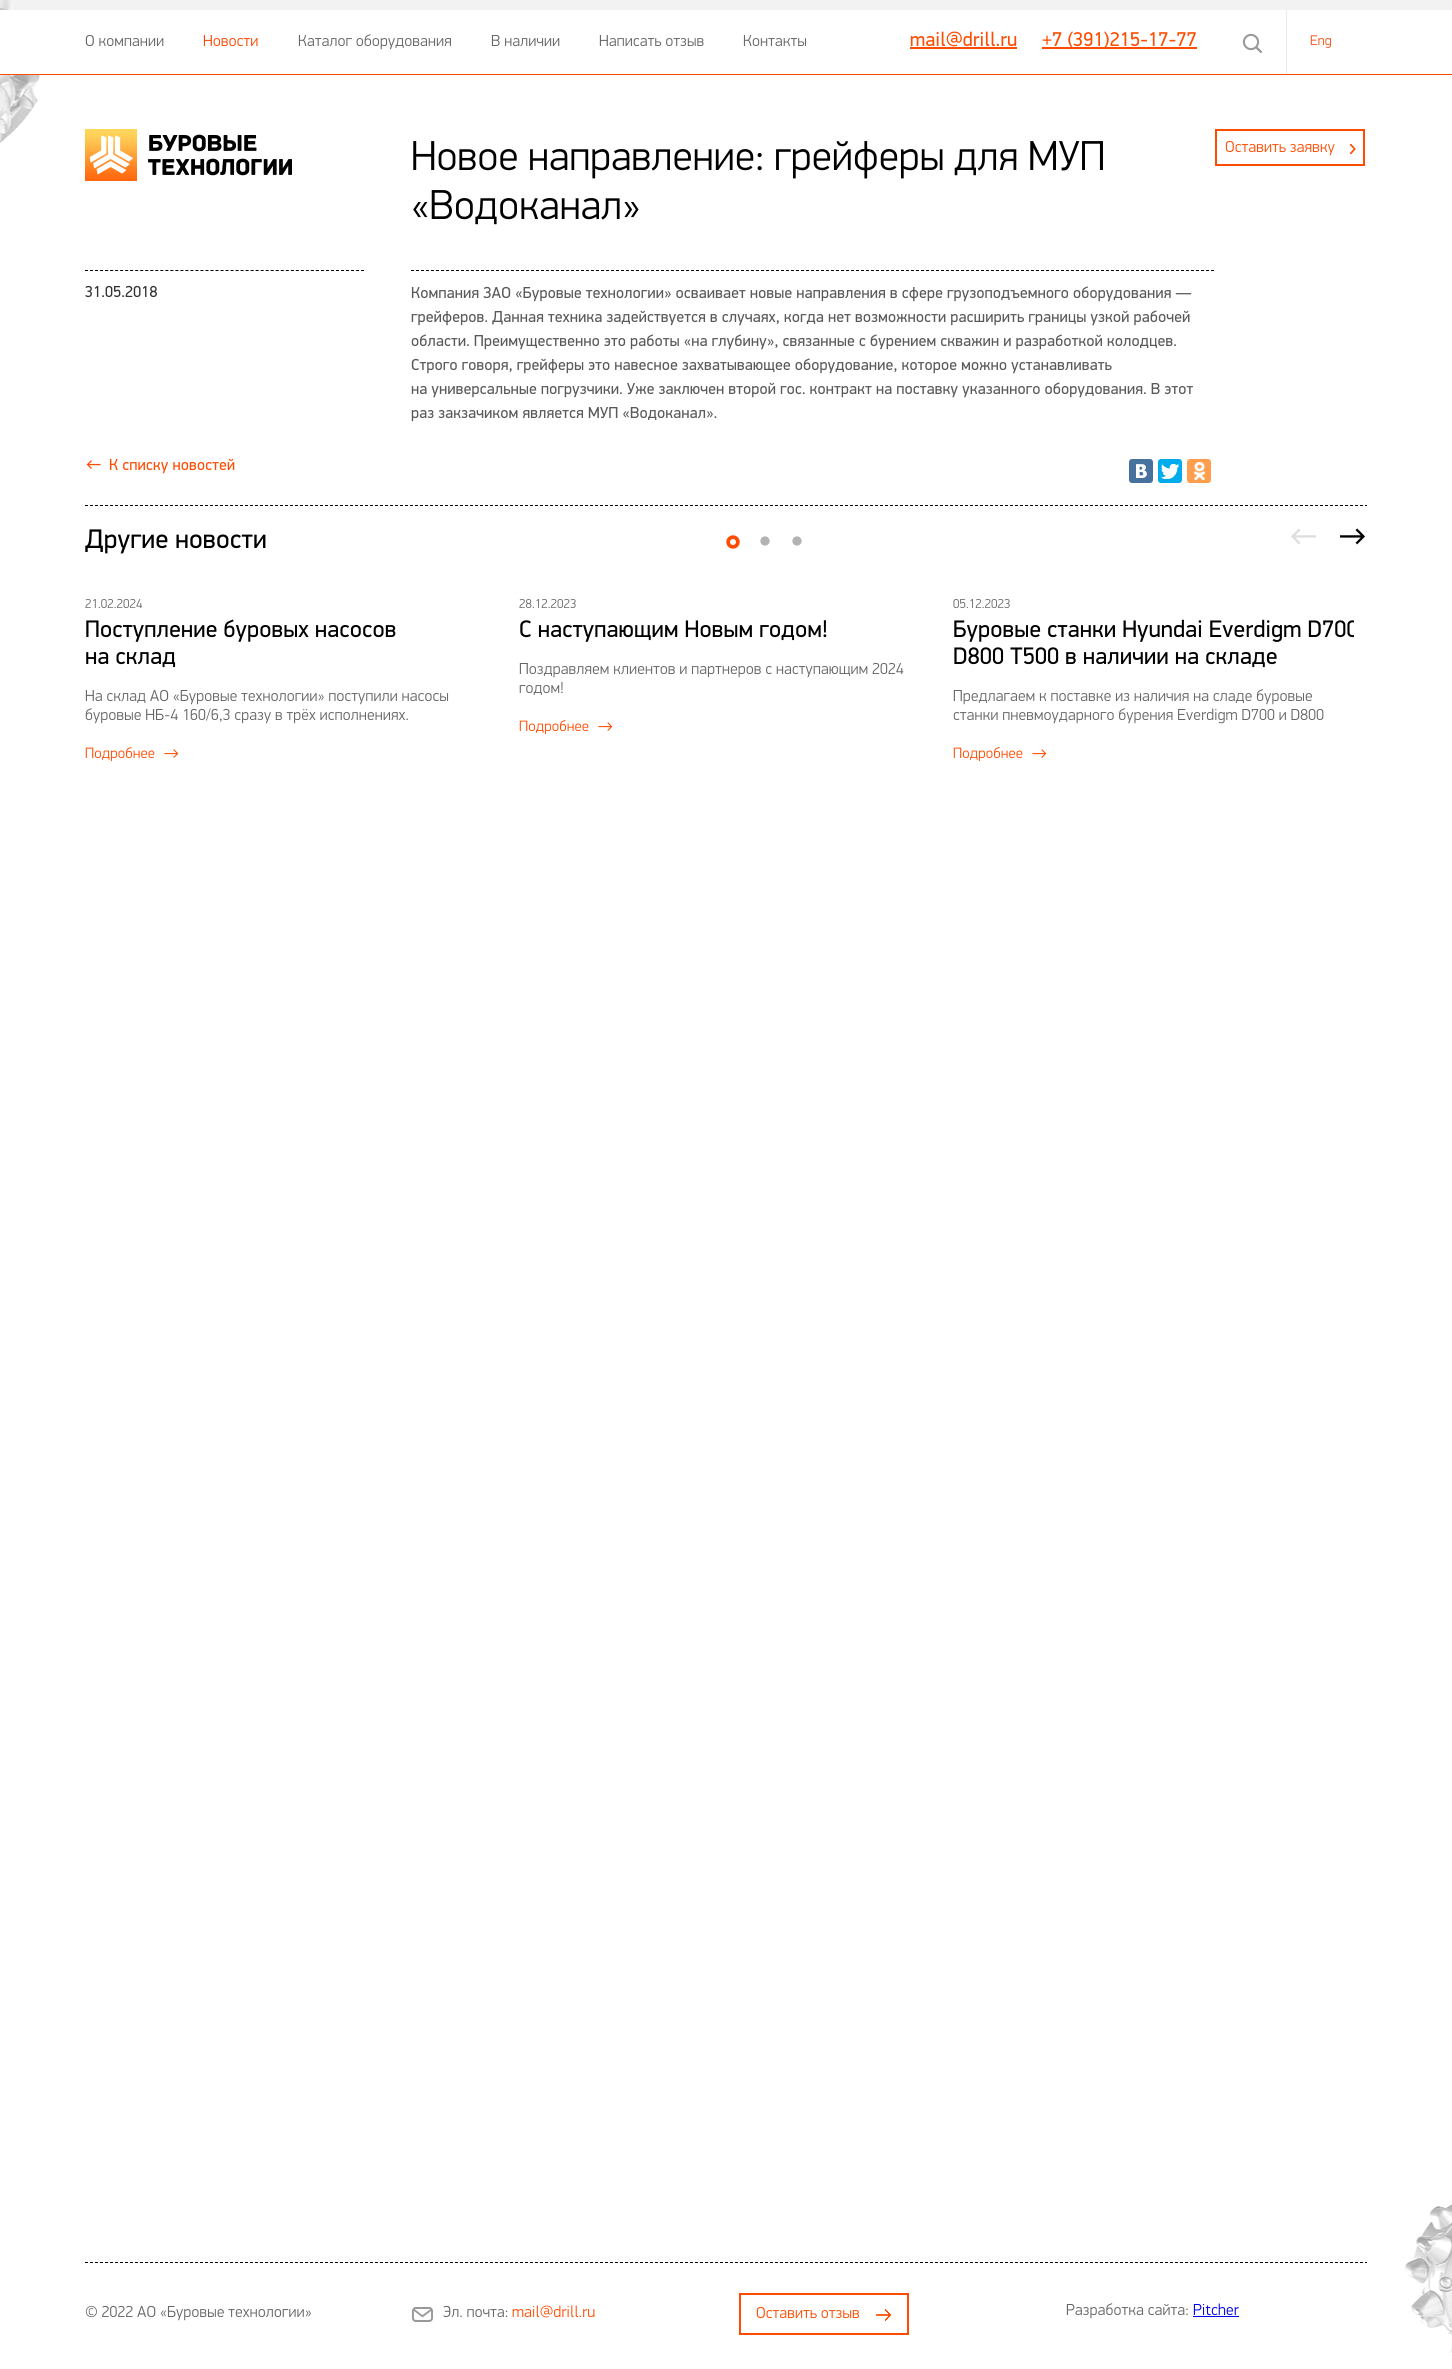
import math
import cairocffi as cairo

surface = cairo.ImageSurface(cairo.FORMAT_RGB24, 1452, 2369)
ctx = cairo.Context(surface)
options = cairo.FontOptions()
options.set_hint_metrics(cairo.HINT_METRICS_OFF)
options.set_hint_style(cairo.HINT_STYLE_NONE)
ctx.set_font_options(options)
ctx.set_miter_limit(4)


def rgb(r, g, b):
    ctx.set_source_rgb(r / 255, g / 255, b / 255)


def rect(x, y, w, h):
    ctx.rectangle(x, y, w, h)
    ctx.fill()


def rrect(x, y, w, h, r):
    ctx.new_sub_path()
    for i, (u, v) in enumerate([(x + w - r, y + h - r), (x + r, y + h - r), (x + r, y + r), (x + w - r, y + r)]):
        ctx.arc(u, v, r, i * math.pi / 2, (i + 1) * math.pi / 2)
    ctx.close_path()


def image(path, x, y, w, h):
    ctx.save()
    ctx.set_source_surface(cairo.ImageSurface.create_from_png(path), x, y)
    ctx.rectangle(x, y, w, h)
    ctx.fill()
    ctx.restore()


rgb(255, 255, 255)
ctx.paint()
rgb(242, 242, 242)
rect(0, 0, 1452, 10)
image('image0.png', 0, 0, 40, 143)
image('image1.png', 1405, 2204, 47, 149)
rgb(255, 255, 255)
rect(0, 10, 40, 64)
rgb(255, 76, 0)
rect(0, 74, 1452, 1)
image('image2.png', 85, 34, 79, 13)
image('image3.png', 203, 35, 55, 12)
image('image4.png', 298, 34, 153, 16)
image('image5.png', 491, 35, 69, 12)
image('image6.png', 599, 35, 105, 12)
image('image7.png', 743, 35, 63, 11)
image('image8.png', 910, 31, 107, 16)
image('image9.png', 1042, 31, 154, 16)
rect(910, 47, 107, 2)
rect(1042, 47, 155, 2)
image('image10.png', 1242, 33, 20, 20)
rgb(235, 235, 235)
rect(1286, 10, 1, 64)
image('image11.png', 1310, 35, 21, 13)
image('image12.png', 85, 129, 207, 52)
image('image13.png', 1350, 144, 6, 10)
ctx.rectangle(1216, 130, 148, 35)
rgb(255, 76, 1)
ctx.stroke()
image('image14.png', 1225, 140, 110, 16)
ctx.new_path()
ctx.move_to(85, 270.5)
ctx.line_to(364, 270.5)
rgb(0, 0, 0)
ctx.set_line_width(1)
ctx.set_dash([3, 2.02])
ctx.stroke()
image('image15.png', 85, 285, 72, 13)
image('image16.png', 413, 141, 690, 38)
image('image17.png', 413, 190, 226, 35)
ctx.new_path()
ctx.move_to(411, 270.5)
ctx.line_to(1214, 270.5)
ctx.set_dash([3, 2])
ctx.stroke()
image('image18.png', 411, 286, 781, 16)
image('image19.png', 411, 310, 779, 16)
image('image20.png', 411, 334, 765, 16)
image('image21.png', 411, 358, 701, 16)
image('image22.png', 411, 382, 782, 16)
image('image23.png', 411, 407, 306, 15)
rgb(72, 114, 158)
rrect(1129, 459, 24, 24, 3)
ctx.fill()
image('image24.png', 1136, 464, 11, 14)
rgb(0, 172, 237)
rrect(1158, 459, 24, 24, 3)
ctx.fill()
image('image25.png', 1161, 464, 18, 15)
rgb(255, 159, 77)
rrect(1187, 459, 24, 24, 3)
ctx.fill()
image('image26.png', 1194, 462, 11, 18)
ctx.new_path()
ctx.move_to(85, 505.5)
ctx.line_to(1367, 505.5)
rgb(0, 0, 0)
ctx.stroke()
image('image27.png', 86, 460, 15, 9)
image('image28.png', 109, 458, 126, 16)
image('image29.png', 85, 529, 181, 25)
image('image30.png', 726, 535, 14, 14)
image('image31.png', 760, 536, 10, 10)
image('image31.png', 792, 536, 10, 10)
image('image32.png', 1291, 528, 25, 17)
image('image33.png', 1340, 528, 25, 17)
image('image34.png', 85, 599, 57, 10)
image('image35.png', 86, 619, 310, 23)
image('image36.png', 86, 652, 90, 16)
image('image37.png', 85, 689, 364, 16)
image('image38.png', 85, 708, 323, 16)
image('image39.png', 85, 746, 70, 15)
image('image40.png', 164, 749, 15, 9)
image('image41.png', 519, 599, 57, 10)
image('image42.png', 520, 620, 307, 22)
image('image43.png', 519, 662, 385, 16)
image('image44.png', 519, 681, 44, 14)
image('image39.png', 519, 719, 70, 15)
image('image40.png', 598, 722, 15, 9)
image('image45.png', 953, 599, 57, 10)
image('image46.png', 954, 619, 400, 23)
image('image47.png', 954, 647, 323, 21)
image('image48.png', 953, 689, 359, 16)
image('image49.png', 953, 708, 371, 16)
image('image39.png', 953, 746, 70, 15)
image('image40.png', 1032, 749, 15, 9)
ctx.new_path()
ctx.move_to(85, 2262.5)
ctx.line_to(1367, 2262.5)
ctx.stroke()
image('image50.png', 85, 2305, 48, 13)
image('image51.png', 137, 2305, 174, 16)
image('image52.png', 412, 2307, 21, 15)
image('image53.png', 443, 2305, 65, 13)
image('image54.png', 512, 2305, 83, 13)
image('image55.png', 876, 2309, 15, 12)
ctx.rectangle(740, 2294, 168, 40)
rgb(255, 76, 1)
ctx.set_line_width(2)
ctx.set_dash([])
ctx.stroke()
image('image56.png', 756, 2306, 103, 13)
image('image57.png', 1066, 2303, 122, 16)
image('image58.png', 1193, 2303, 46, 13)
rgb(0, 0, 238)
rect(1193, 2316, 46, 1)
surface.write_to_png('render.png')
